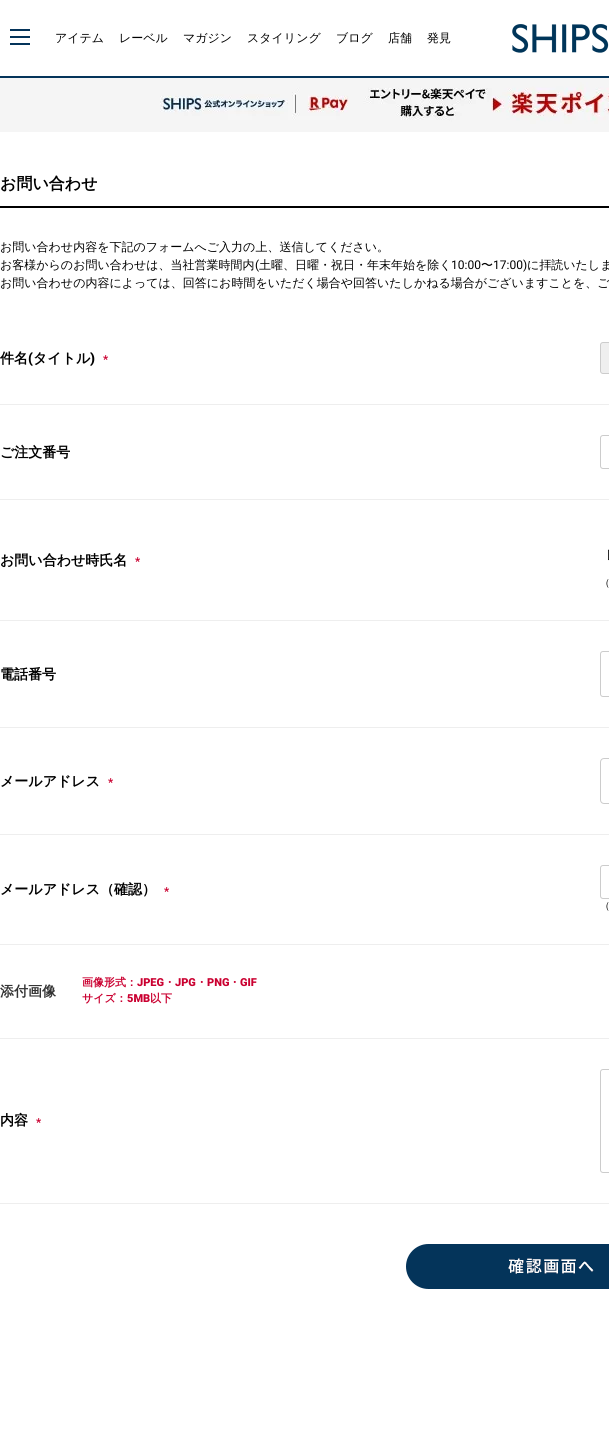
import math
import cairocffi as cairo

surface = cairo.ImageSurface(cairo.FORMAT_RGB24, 609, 1440)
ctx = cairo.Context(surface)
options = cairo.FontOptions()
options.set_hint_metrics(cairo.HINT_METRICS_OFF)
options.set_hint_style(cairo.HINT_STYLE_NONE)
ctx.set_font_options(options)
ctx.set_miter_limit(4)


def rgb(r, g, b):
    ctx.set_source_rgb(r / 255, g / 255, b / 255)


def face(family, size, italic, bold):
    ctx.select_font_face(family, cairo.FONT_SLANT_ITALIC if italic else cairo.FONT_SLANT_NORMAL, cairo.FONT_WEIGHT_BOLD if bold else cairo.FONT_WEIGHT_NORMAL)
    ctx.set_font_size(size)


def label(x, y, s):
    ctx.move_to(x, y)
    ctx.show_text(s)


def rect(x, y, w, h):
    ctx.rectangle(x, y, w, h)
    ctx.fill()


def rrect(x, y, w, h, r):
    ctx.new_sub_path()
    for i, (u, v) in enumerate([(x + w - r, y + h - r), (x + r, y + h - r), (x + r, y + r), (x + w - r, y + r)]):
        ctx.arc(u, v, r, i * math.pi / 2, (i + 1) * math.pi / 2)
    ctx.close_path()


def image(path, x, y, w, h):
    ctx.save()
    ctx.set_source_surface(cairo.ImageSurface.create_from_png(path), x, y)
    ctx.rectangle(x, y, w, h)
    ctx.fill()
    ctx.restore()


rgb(255, 255, 255)
ctx.paint()
rgb(4, 52, 90)
rect(0, 76, 609, 2)
rect(10, 36, 20, 2)
rect(10, 29, 20, 2)
rect(10, 43, 20, 2)
face('WenQuanYi Zen Hei Medium', 12, 0, 0)
rgb(0, 0, 0)
label(55, 42, 'アイテム')
label(119, 42, 'レーベル')
label(183, 42, 'マガジン')
label(247, 42, 'スタイリング')
label(336, 42, 'ブログ')
label(388, 42, '店舗')
label(427, 42, '発見')
image('image0.png', 512, 24, 97, 29)
image('image1.png', 0, 78, 609, 54)
rect(0, 206, 609, 2)
face('WenQuanYi Zen Hei', 16, 0, 1)
label(0, 189, 'お問い合わせ')
face('WenQuanYi Zen Hei Medium', 12, 0, 0)
label(0, 251, 'お問い合わせ内容を下記のフォームへご入力の上、送信してください。')
label(0, 269, 'お客様からのお問い合わせは、当社営業時間内')
face('Roboto', 12, 0, 0)
label(255, 269, '(')
face('WenQuanYi Zen Hei Medium', 12, 0, 0)
label(259, 269, '土曜、日曜・祝日・年末年始を除く')
face('Roboto', 12, 0, 0)
label(451, 269, '10:00')
face('WenQuanYi Zen Hei Medium', 12, 0, 0)
label(481, 269, '〜')
face('Roboto', 12, 0, 0)
label(493, 269, '17:00)')
face('WenQuanYi Zen Hei Medium', 12, 0, 0)
label(527, 269, 'に拝読いたしま')
label(0, 287, 'お問い合わせの内容によっては、回答にお時間をいただく場合や回答いたしかねる場合がございますことを、ご')
rgb(238, 238, 238)
rect(0, 404, 609, 1)
face('WenQuanYi Zen Hei', 14, 0, 1)
rgb(0, 0, 0)
label(0, 363, '件名')
face('Roboto Black', 14, 0, 0)
label(28, 363, '(')
face('WenQuanYi Zen Hei', 14, 0, 1)
label(33, 363, 'タイトル')
face('Roboto Black', 14, 0, 0)
label(90, 363, ')')
face('Roboto Black', 11, 0, 0)
rgb(202, 0, 48)
label(103, 363, '*')
rgb(239, 239, 239)
rrect(600.5, 342.5, 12, 31, 2.5)
ctx.fill_preserve()
rgb(204, 204, 204)
ctx.set_line_width(1)
ctx.stroke()
rgb(238, 238, 238)
rect(0, 499, 609, 1)
face('WenQuanYi Zen Hei', 14, 0, 1)
rgb(0, 0, 0)
label(0, 457, 'ご注文番号')
rrect(600.5, 435.5, 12, 33, 2.5)
rgb(204, 204, 204)
ctx.stroke()
rgb(238, 238, 238)
rect(0, 620, 609, 1)
rgb(0, 0, 0)
label(0, 565, 'お問い合わせ時氏名')
face('Roboto Black', 11, 0, 0)
rgb(202, 0, 48)
label(135, 565, '*')
face('WenQuanYi Zen Hei Medium', 12, 0, 0)
rgb(0, 0, 0)
label(600, 558, '［')
face('WenQuanYi Zen Hei Medium', 10, 0, 0)
label(600, 586, '（')
rgb(238, 238, 238)
rect(0, 727, 609, 1)
face('WenQuanYi Zen Hei', 14, 0, 1)
rgb(0, 0, 0)
label(0, 679, '電話番号')
rrect(600.5, 651.5, 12, 45, 2.5)
rgb(204, 204, 204)
ctx.stroke()
rgb(238, 238, 238)
rect(0, 834, 609, 1)
rgb(0, 0, 0)
label(0, 786, 'メールアドレス')
face('Roboto Black', 11, 0, 0)
rgb(202, 0, 48)
label(108, 786, '*')
rrect(600.5, 758.5, 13, 45, 3.5)
rgb(204, 204, 204)
ctx.stroke()
rgb(238, 238, 238)
rect(0, 944, 609, 1)
face('WenQuanYi Zen Hei', 14, 0, 1)
rgb(0, 0, 0)
label(0, 894, 'メールアドレス（確認）')
face('Roboto Black', 11, 0, 0)
rgb(202, 0, 48)
label(164, 895, '*')
rrect(600.5, 865.5, 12, 33, 2.5)
rgb(204, 204, 204)
ctx.stroke()
face('WenQuanYi Zen Hei Medium', 10, 0, 0)
rgb(0, 0, 0)
label(600, 909, '（')
rgb(238, 238, 238)
rect(0, 1038, 609, 1)
face('WenQuanYi Zen Hei', 14, 0, 1)
rgb(51, 51, 51)
label(0, 996, '添付画像')
face('WenQuanYi Zen Hei', 11, 0, 1)
rgb(202, 0, 48)
label(82, 986, '画像形式：')
face('Roboto Black', 11, 0, 0)
label(137, 986, 'JPEG')
face('WenQuanYi Zen Hei', 11, 0, 1)
label(164, 986, '・')
face('Roboto Black', 11, 0, 0)
label(175, 986, 'JPG')
face('WenQuanYi Zen Hei', 11, 0, 1)
label(196, 986, '・')
face('Roboto Black', 11, 0, 0)
label(207, 986, 'PNG')
face('WenQuanYi Zen Hei', 11, 0, 1)
label(229, 986, '・')
face('Roboto Black', 11, 0, 0)
label(240, 986, 'GIF')
face('WenQuanYi Zen Hei', 11, 0, 1)
label(82, 1002, 'サイズ：')
face('Roboto Black', 11, 0, 0)
label(127, 1002, '5MB')
face('WenQuanYi Zen Hei', 11, 0, 1)
label(150, 1002, '以下')
rgb(238, 238, 238)
rect(0, 1203, 609, 1)
face('WenQuanYi Zen Hei', 14, 0, 1)
rgb(0, 0, 0)
label(0, 1125, '内容')
face('Roboto Black', 11, 0, 0)
rgb(202, 0, 48)
label(36, 1126, '*')
rrect(600.5, 1069.5, 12, 103, 2.5)
rgb(204, 204, 204)
ctx.stroke()
image('image2.png', 406, 1244, 203, 45)
surface.write_to_png('render.png')
